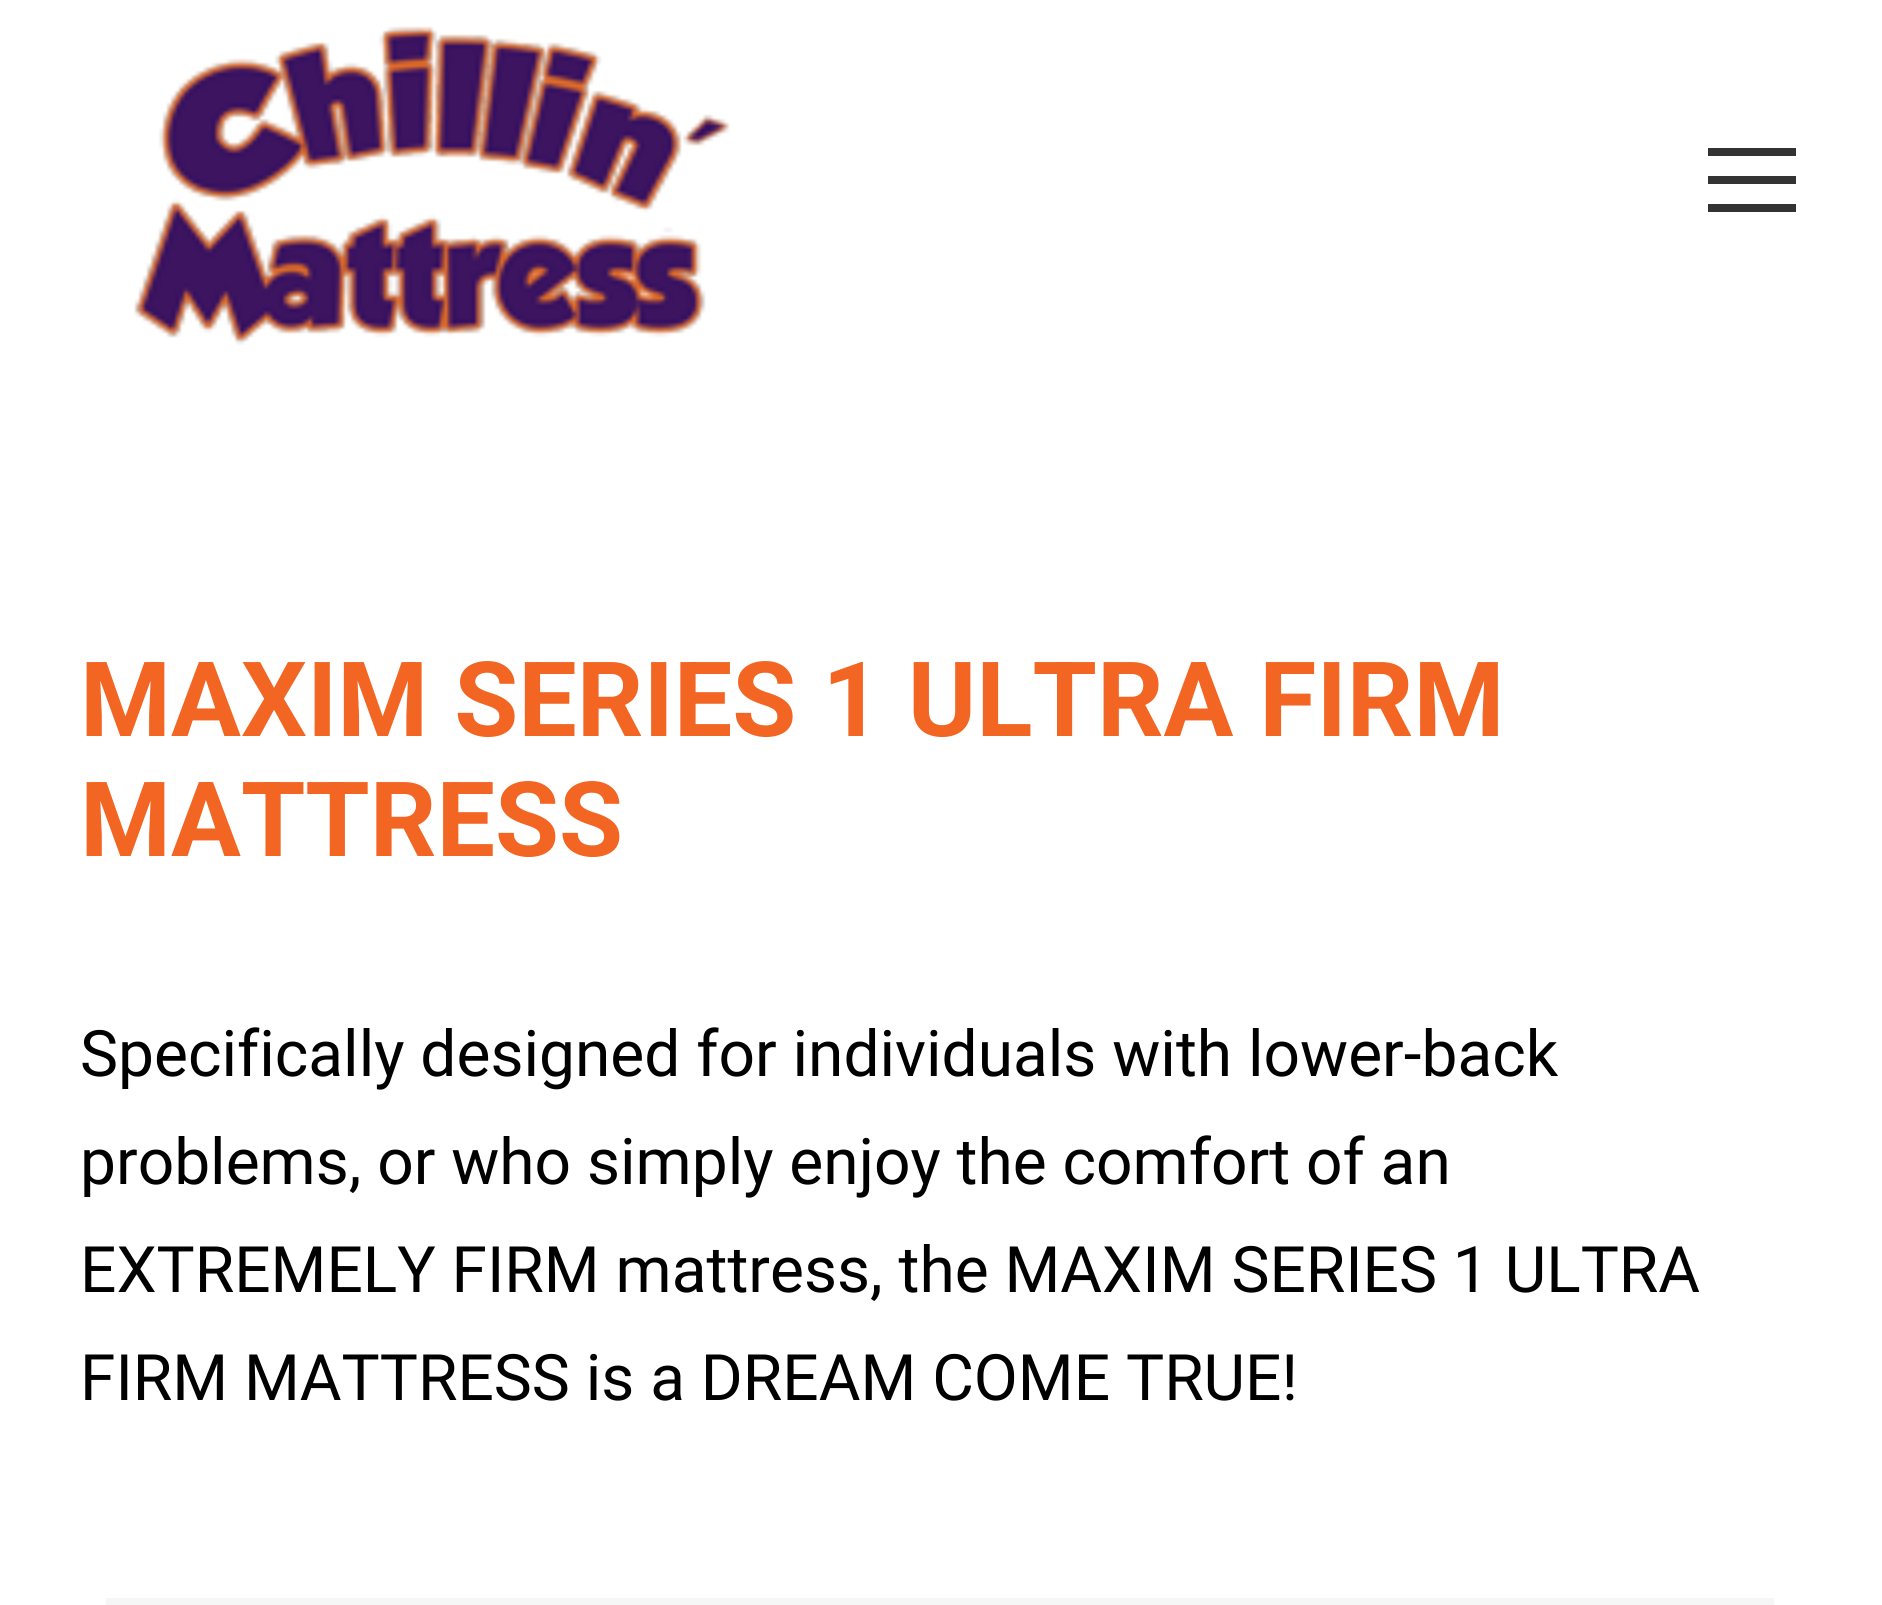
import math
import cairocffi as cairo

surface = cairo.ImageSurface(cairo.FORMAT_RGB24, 1882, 1605)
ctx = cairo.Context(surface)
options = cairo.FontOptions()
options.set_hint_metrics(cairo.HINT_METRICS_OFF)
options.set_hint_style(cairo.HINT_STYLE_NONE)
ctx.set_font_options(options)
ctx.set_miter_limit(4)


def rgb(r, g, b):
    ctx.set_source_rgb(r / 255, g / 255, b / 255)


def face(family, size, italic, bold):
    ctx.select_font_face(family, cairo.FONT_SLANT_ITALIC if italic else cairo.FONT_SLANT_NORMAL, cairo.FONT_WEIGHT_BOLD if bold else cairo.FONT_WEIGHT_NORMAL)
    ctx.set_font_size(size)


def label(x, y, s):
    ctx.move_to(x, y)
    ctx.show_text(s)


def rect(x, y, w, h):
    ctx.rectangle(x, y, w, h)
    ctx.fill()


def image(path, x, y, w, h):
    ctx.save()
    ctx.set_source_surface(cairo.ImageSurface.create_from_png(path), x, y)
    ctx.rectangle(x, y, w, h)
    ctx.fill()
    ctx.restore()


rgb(255, 255, 255)
ctx.paint()
image('image0.png', 134, 26, 596, 319)
rgb(51, 51, 51)
rect(1708, 148, 88, 8)
rect(1708, 176, 88, 8)
rect(1708, 204, 88, 8)
face('Roboto', 104, 0, 1)
rgb(242, 101, 34)
label(80, 736, 'MAXIM SERIES 1 ULTRA FIRM')
label(80, 856, 'MATTRESS')
face('Roboto', 64, 0, 0)
rgb(0, 0, 0)
label(80, 1076, 'Specifically designed for individuals with lower-back')
label(80, 1184, 'problems, or who simply enjoy the comfort of an')
label(80, 1292, 'EXTREMELY FIRM mattress, the MAXIM SERIES 1 ULTRA')
label(80, 1400, 'FIRM MATTRESS is a DREAM COME TRUE!')
rgb(246, 246, 246)
rect(106, 1598, 1668, 7)
surface.write_to_png('render.png')
